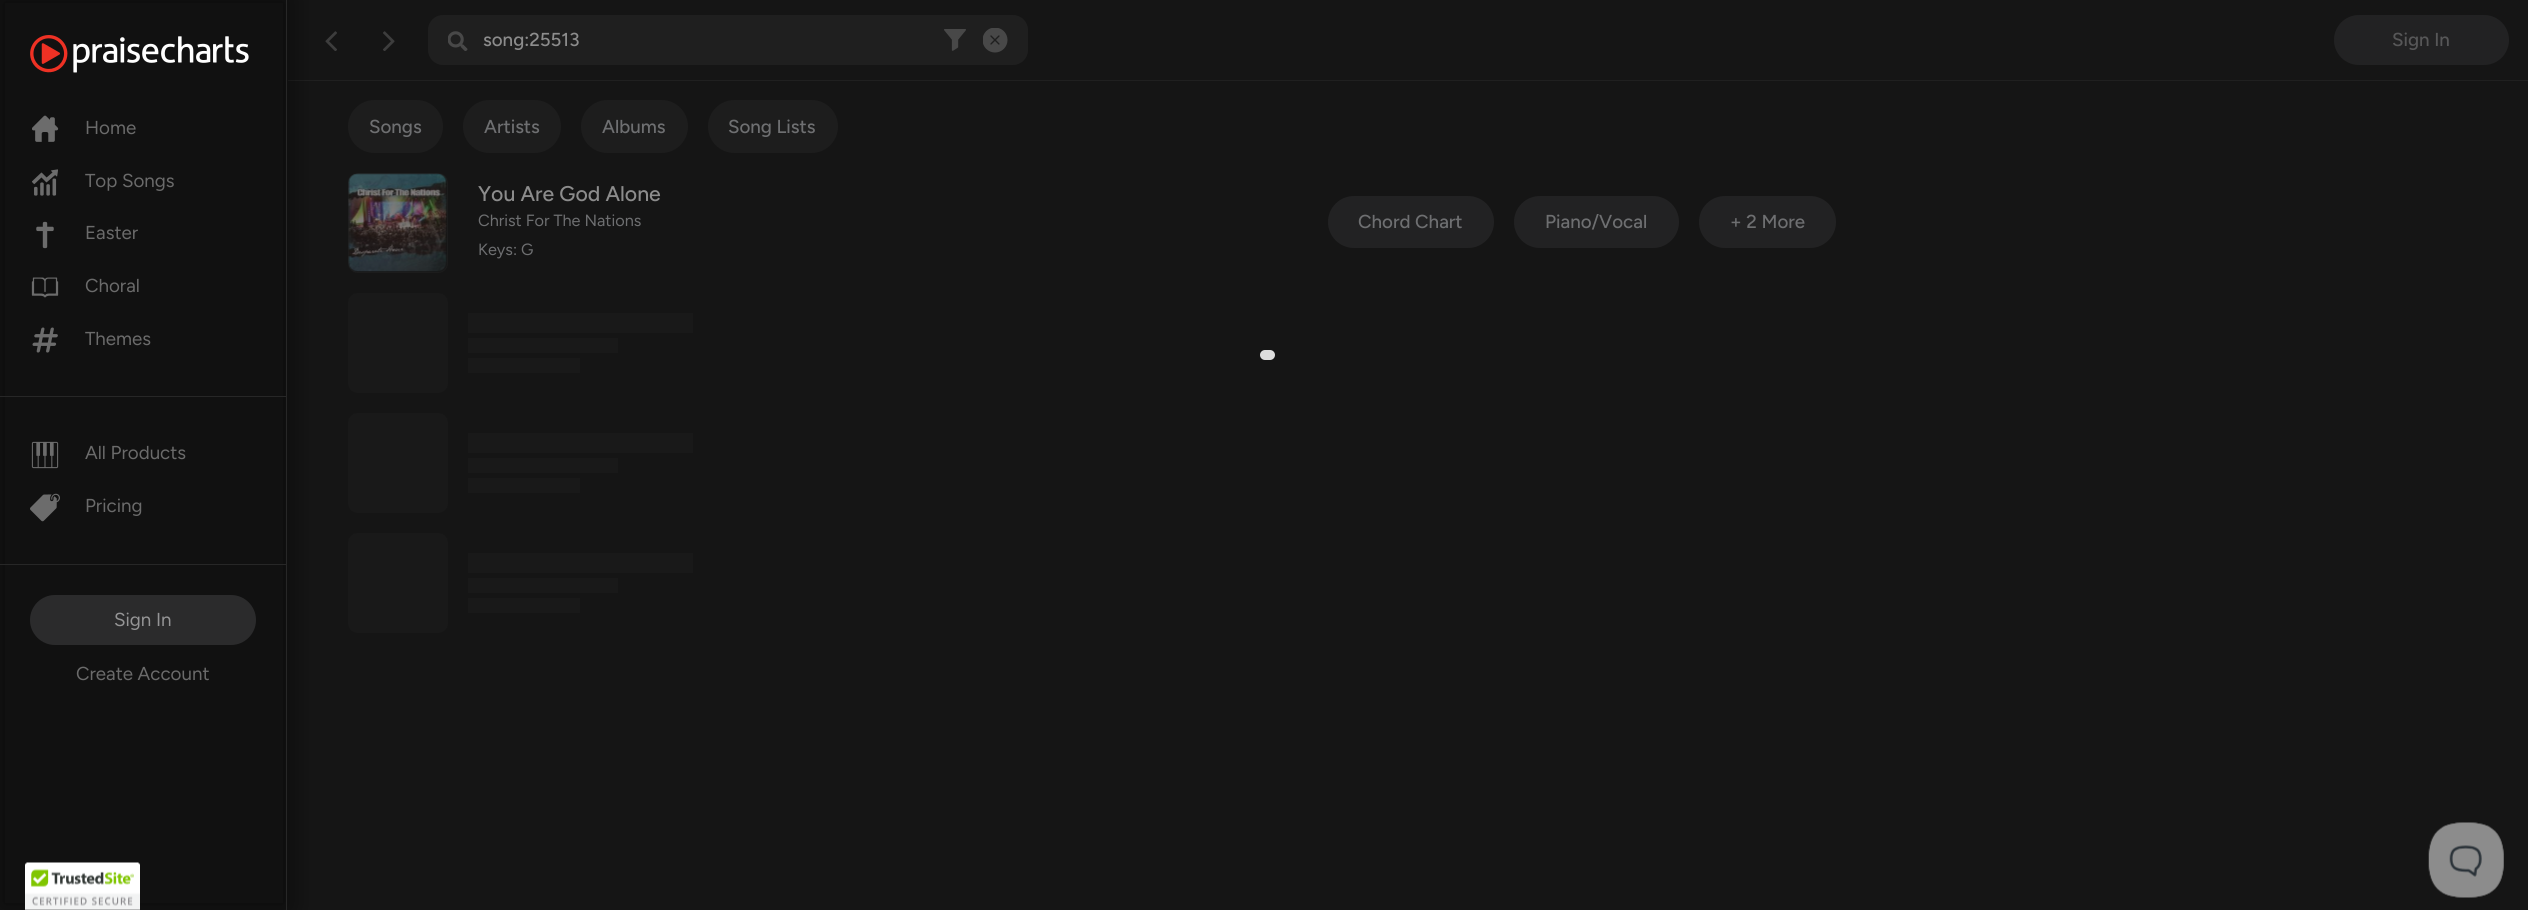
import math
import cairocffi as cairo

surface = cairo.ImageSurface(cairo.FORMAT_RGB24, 2528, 910)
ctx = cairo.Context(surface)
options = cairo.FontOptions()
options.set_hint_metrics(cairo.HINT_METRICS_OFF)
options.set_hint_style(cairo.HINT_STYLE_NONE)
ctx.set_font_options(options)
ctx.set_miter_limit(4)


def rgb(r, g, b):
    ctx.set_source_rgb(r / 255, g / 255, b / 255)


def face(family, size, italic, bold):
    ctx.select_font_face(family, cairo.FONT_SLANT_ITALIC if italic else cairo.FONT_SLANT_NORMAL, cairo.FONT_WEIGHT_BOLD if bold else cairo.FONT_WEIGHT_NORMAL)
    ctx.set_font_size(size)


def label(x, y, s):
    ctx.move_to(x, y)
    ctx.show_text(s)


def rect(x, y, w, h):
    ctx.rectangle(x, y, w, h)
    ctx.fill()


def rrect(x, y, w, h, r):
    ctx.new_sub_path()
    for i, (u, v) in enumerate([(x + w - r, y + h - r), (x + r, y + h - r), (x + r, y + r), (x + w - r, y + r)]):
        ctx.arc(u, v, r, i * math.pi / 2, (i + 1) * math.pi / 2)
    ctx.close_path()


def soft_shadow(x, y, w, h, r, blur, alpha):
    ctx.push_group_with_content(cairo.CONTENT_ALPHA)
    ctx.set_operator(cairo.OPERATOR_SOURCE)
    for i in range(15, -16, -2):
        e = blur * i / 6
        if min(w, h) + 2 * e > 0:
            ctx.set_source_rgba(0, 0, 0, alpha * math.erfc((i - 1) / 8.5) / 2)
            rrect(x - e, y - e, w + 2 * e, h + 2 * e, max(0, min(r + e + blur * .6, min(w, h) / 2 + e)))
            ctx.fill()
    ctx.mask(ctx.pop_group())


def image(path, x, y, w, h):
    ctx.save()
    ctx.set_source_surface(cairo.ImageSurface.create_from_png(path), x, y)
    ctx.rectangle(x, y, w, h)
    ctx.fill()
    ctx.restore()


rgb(21, 21, 21)
ctx.paint()
rgb(32, 32, 32)
rect(288, 80, 2240, 1)
image('image8.png', 325, 31, 12, 20)
rgb(0, 0, 0)
soft_shadow(0, -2, 288, 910, 0, 14, 0.5)
rgb(17, 17, 17)
rect(5, 3, 278, 900)
rgb(39, 39, 39)
rect(286, 0, 1, 910)
image('image0.png', 30, 35, 219, 38)
rect(0, 396, 286, 1)
image('image1.png', 32, 115, 27, 27)
face('Figtree', 18.75, 0, 0)
rgb(107, 107, 107)
label(85, 134, 'Home')
image('image2.png', 32, 169, 26, 27)
label(85, 187, 'Top Songs')
image('image3.png', 36, 221, 18, 28)
label(85, 239, 'Easter')
image('image4.png', 31, 277, 28, 21)
label(85, 292, 'Choral')
image('image5.png', 32, 327, 26, 26)
label(85, 345, 'Themes')
rgb(39, 39, 39)
rect(0, 564, 286, 1)
image('image6.png', 31, 441, 28, 28)
rgb(107, 107, 107)
label(85, 459, 'All Products')
image('image7.png', 30, 493, 30, 29)
label(85, 512, 'Pricing')
rgb(43, 43, 44)
rrect(30, 595, 226, 50, 25)
ctx.fill()
rgb(149, 149, 150)
label(114, 626, 'Sign In')
rgb(107, 107, 107)
label(76, 680, 'Create Account')
image('image9.png', 383, 31, 12, 20)
rgb(31, 31, 31)
rrect(428, 15, 600, 50, 15)
ctx.fill()
image('image10.png', 448, 31, 20, 20)
face('Figtree Medium', 18.75, 0, 0)
rgb(140, 140, 140)
label(483, 46, 'song:25513')
image('image11.png', 944, 29, 22, 22)
image('image12.png', 983, 28, 25, 25)
rgb(34, 34, 35)
rrect(2334, 15, 175, 50, 25)
ctx.fill()
rgb(87, 87, 88)
label(2392, 46, 'Sign In')
rgb(29, 29, 29)
rrect(348, 100, 95, 53, 26.5)
ctx.fill()
rgb(110, 111, 113)
label(369, 133, 'Songs')
rgb(29, 29, 29)
rrect(463, 100, 98, 53, 26.5)
ctx.fill()
rgb(110, 111, 113)
label(484, 133, 'Artists')
rgb(29, 29, 29)
rrect(581, 100, 107, 53, 26.5)
ctx.fill()
rgb(110, 111, 113)
label(602, 133, 'Albums')
rgb(29, 29, 29)
rrect(708, 100, 130, 53, 26.5)
ctx.fill()
rgb(110, 111, 113)
label(728, 133, 'Song Lists')
rrect(348.5, 173.5, 99, 99, 9.5)
rgb(28, 28, 28)
ctx.set_line_width(1)
ctx.stroke()
image('image13.png', 348, 173, 99, 99)
face('Figtree Medium', 21.25, 0, 0)
rgb(140, 140, 140)
label(478, 201, 'You Are God Alone')
face('Figtree', 16.25, 0, 0)
rgb(110, 111, 113)
label(478, 226, 'Christ For The Nations')
label(478, 255, 'Keys: G')
rgb(34, 34, 35)
rrect(1328, 196, 166, 52, 26)
ctx.fill()
face('Figtree Medium', 18.75, 0, 0)
rgb(110, 111, 113)
label(1358, 228, 'Chord Chart')
rgb(34, 34, 35)
rrect(1514, 196, 165, 52, 26)
ctx.fill()
rgb(110, 111, 113)
label(1545, 228, 'Piano/Vocal')
rgb(34, 34, 35)
rrect(1699, 196, 137, 52, 26)
ctx.fill()
rgb(110, 111, 113)
label(1730, 228, '+ 2 More')
rgb(25, 25, 25)
rrect(348, 293, 100, 100, 10)
ctx.fill()
rect(468, 313, 225, 20)
rect(468, 338, 150, 15)
rect(468, 358, 112, 15)
rrect(348, 413, 100, 100, 10)
ctx.fill()
rect(468, 433, 225, 20)
rect(468, 458, 150, 15)
rect(468, 478, 112, 15)
rrect(348, 533, 100, 100, 10)
ctx.fill()
rect(468, 553, 225, 20)
rect(468, 578, 150, 15)
rect(468, 598, 112, 15)
ctx.new_path()
ctx.move_to(1265, 355)
ctx.line_to(1270, 355)
rgb(221, 221, 221)
ctx.set_line_width(10)
ctx.set_line_cap(cairo.LINE_CAP_ROUND)
ctx.stroke()
image('image14.png', 25, 862, 115, 48)
image('image15.png', 2428, 822, 76, 76)
surface.write_to_png('render.png')
